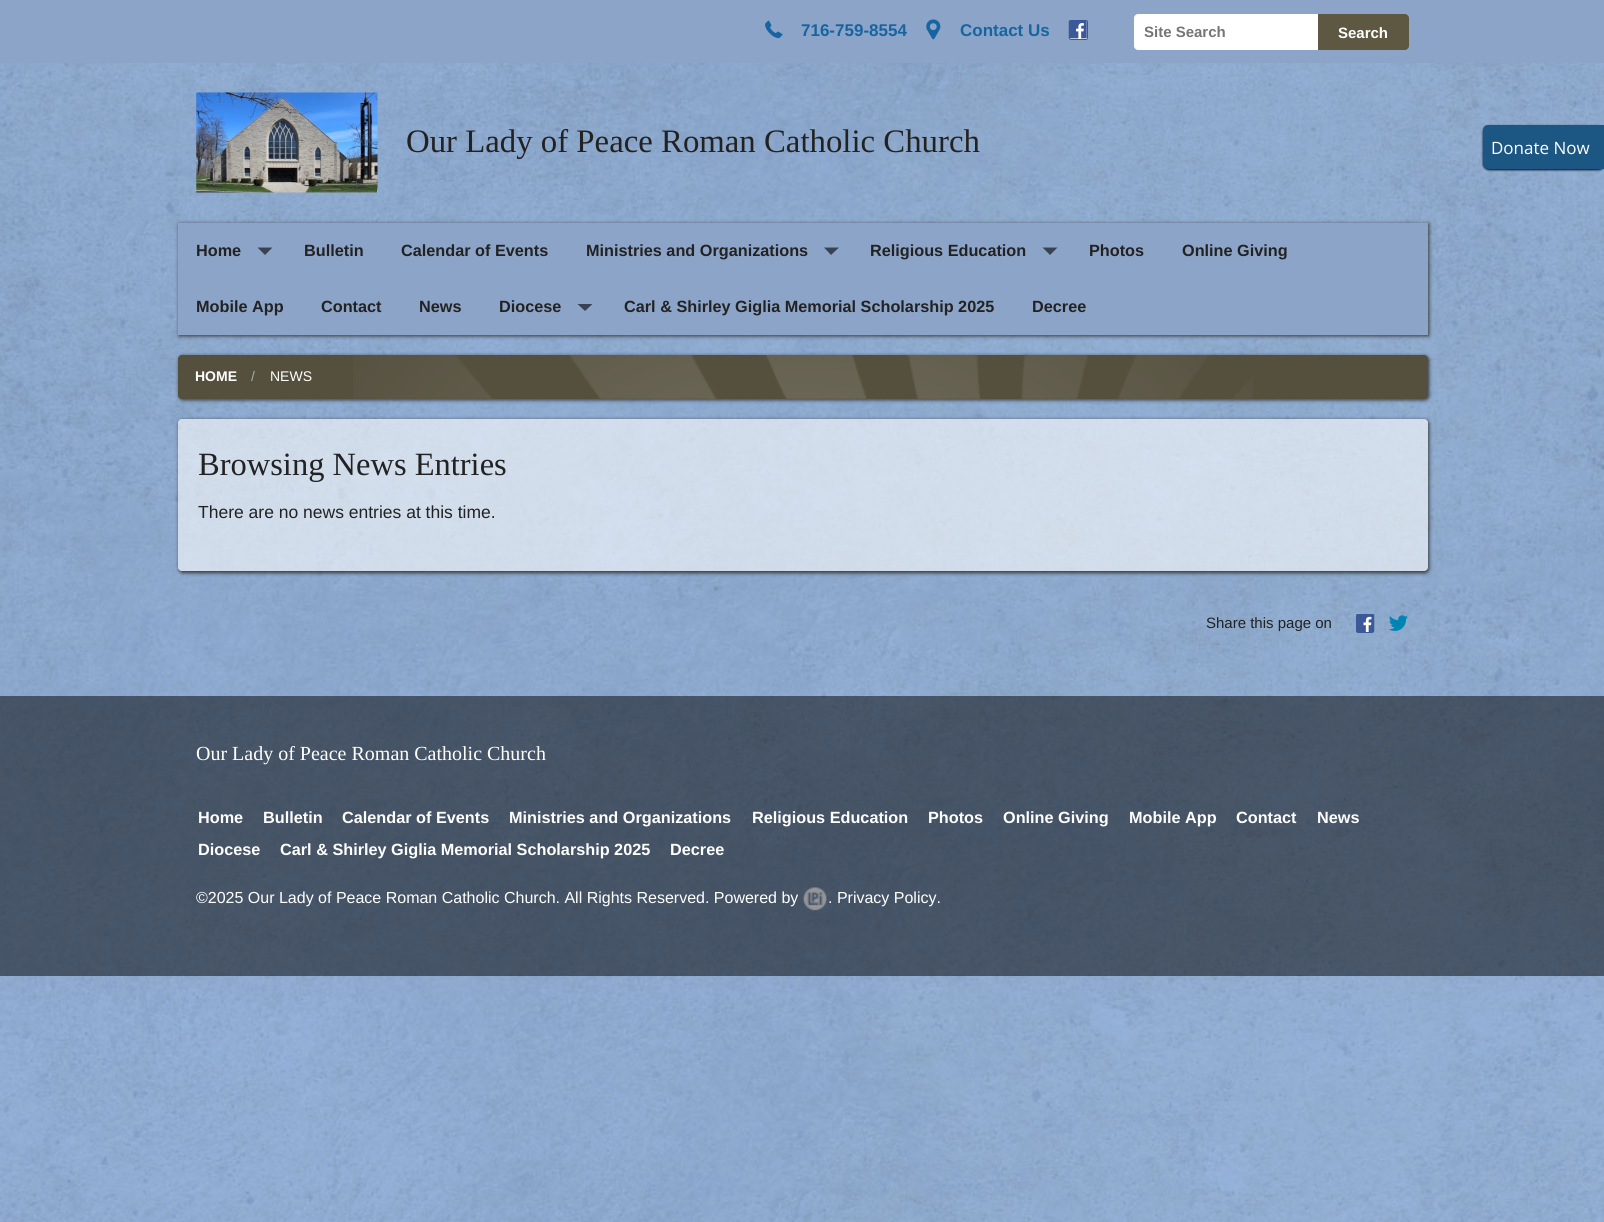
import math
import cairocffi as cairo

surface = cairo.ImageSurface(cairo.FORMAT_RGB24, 1604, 1222)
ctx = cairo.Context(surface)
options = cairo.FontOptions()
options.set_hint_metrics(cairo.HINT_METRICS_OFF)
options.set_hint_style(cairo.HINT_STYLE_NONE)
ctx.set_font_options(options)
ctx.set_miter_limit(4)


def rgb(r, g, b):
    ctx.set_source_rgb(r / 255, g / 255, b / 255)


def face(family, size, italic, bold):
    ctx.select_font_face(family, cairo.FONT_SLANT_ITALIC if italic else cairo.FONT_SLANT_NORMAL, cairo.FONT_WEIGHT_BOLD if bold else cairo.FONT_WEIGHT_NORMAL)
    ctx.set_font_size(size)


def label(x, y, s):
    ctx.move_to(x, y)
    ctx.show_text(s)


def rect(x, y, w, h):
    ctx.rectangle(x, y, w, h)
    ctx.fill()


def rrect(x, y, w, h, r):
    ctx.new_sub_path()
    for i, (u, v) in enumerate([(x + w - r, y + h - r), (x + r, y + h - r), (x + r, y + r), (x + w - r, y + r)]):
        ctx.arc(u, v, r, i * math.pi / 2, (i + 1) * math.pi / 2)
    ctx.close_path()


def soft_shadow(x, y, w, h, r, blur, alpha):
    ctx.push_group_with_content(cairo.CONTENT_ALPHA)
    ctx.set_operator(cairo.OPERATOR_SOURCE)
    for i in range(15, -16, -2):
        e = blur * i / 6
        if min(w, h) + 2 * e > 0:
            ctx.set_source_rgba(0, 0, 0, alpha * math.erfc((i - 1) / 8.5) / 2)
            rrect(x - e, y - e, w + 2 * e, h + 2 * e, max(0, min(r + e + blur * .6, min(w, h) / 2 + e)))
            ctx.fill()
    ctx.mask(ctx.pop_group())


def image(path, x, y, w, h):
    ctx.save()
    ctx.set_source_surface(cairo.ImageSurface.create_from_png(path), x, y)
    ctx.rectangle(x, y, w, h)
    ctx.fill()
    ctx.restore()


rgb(255, 255, 255)
ctx.paint()
image('image0.png', 0, 63, 1604, 1159)
rgb(140, 164, 200)
rect(0, 0, 1604, 63)
image('image1.png', 765, 20, 18, 19)
face('Liberation Sans', 17, 0, 1)
rgb(23, 101, 160)
label(801, 36, '716-759-8554')
image('image2.png', 926, 19, 15, 21)
label(960, 36, 'Contact Us')
rgb(255, 255, 255)
rrect(1069.5, 20.5, 18, 19, 1.5)
ctx.fill_preserve()
rgb(59, 89, 152)
ctx.set_line_width(1)
ctx.stroke()
image('image3.png', 1068, 20, 19, 19)
rgb(255, 255, 255)
ctx.new_path()
ctx.move_to(1138, 14)
ctx.line_to(1318, 14)
ctx.line_to(1318, 50)
ctx.line_to(1138, 50)
ctx.curve_to(1136, 50, 1134, 48, 1134, 46)
ctx.line_to(1134, 18)
ctx.curve_to(1134, 16, 1136, 14, 1138, 14)
ctx.close_path()
ctx.fill()
face('Liberation Sans', 15, 0, 1)
rgb(117, 117, 117)
label(1144, 37, 'Site Search')
rgb(94, 88, 66)
ctx.new_path()
ctx.move_to(1318, 14)
ctx.line_to(1405, 14)
ctx.curve_to(1407, 14, 1409, 16, 1409, 18)
ctx.line_to(1409, 46)
ctx.curve_to(1409, 48, 1407, 50, 1405, 50)
ctx.line_to(1318, 50)
ctx.close_path()
ctx.fill()
rgb(255, 255, 255)
label(1338, 38, 'Search')
image('image4.png', 196, 92, 182, 101)
face('Liberation Serif', 32.8, 0, 0)
rgb(34, 34, 34)
label(406, 152, 'Our Lady of Peace Roman Catholic Church')
ctx.save()
ctx.set_fill_rule(cairo.FILL_RULE_EVEN_ODD)
ctx.new_path()
ctx.move_to(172, 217)
ctx.line_to(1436, 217)
ctx.line_to(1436, 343)
ctx.line_to(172, 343)
ctx.close_path()
ctx.move_to(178, 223)
ctx.line_to(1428, 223)
ctx.line_to(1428, 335)
ctx.line_to(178, 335)
ctx.close_path()
ctx.clip()
rgb(51, 51, 51)
soft_shadow(179, 224, 1250, 112, 0, 2, 1)
ctx.restore()
rgb(140, 164, 200)
ctx.new_path()
ctx.move_to(184, 223)
ctx.line_to(1428, 223)
ctx.line_to(1428, 335)
ctx.line_to(184, 335)
ctx.curve_to(180.5, 335, 178, 332.5, 178, 329)
ctx.line_to(178, 229)
ctx.curve_to(178, 225.5, 180.5, 223, 184, 223)
ctx.close_path()
ctx.fill()
face('Liberation Sans', 16.25, 0, 1)
rgb(34, 34, 34)
label(196, 256, 'Home')
rgb(56, 66, 80)
ctx.new_path()
ctx.move_to(257.5, 247.5)
ctx.line_to(272.5, 247.5)
ctx.line_to(265, 255)
ctx.close_path()
ctx.fill()
rgb(34, 34, 34)
label(304, 256, 'Bulletin')
label(401, 256, 'Calendar of Events')
label(586, 256, 'Ministries and Organizations')
rgb(56, 66, 80)
ctx.new_path()
ctx.move_to(824, 247.5)
ctx.line_to(839, 247.5)
ctx.line_to(831, 255)
ctx.close_path()
ctx.fill()
rgb(34, 34, 34)
label(870, 256, 'Religious Education')
rgb(56, 66, 80)
ctx.new_path()
ctx.move_to(1042.5, 247.5)
ctx.line_to(1057.5, 247.5)
ctx.line_to(1050, 255)
ctx.close_path()
ctx.fill()
rgb(34, 34, 34)
label(1089, 256, 'Photos')
label(1182, 256, 'Online Giving')
label(196, 312, 'Mobile App')
label(321, 312, 'Contact')
label(419, 312, 'News')
label(499, 312, 'Diocese')
rgb(56, 66, 80)
ctx.new_path()
ctx.move_to(577.5, 304)
ctx.line_to(592.5, 304)
ctx.line_to(585, 311)
ctx.close_path()
ctx.fill()
rgb(34, 34, 34)
label(624, 312, 'Carl & Shirley Giglia Memorial Scholarship 2025')
label(1032, 312, 'Decree')
rgb(0, 0, 41)
soft_shadow(1483, 126, 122, 44, 6, 1, 1)
rgb(28, 86, 130)
ctx.new_path()
ctx.move_to(1488, 125)
ctx.line_to(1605, 125)
ctx.line_to(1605, 169)
ctx.line_to(1489, 169)
ctx.curve_to(1485.5, 169, 1483, 166.5, 1483, 163)
ctx.line_to(1483, 130)
ctx.curve_to(1483, 127, 1485, 125, 1488, 125)
ctx.close_path()
ctx.fill()
face('Open Sans', 17, 0, 0)
rgb(255, 255, 255)
label(1491, 154, 'Donate Now')
rgb(51, 51, 51)
soft_shadow(179, 356, 1250, 44, 4, 2, 1)
rgb(85, 80, 62)
rrect(178, 355, 1250, 44, 4)
ctx.fill()
image('image5.png', 353, 355, 900, 44)
face('Liberation Sans', 14, 0, 1)
rgb(255, 255, 255)
label(195, 381, 'HOME')
face('Liberation Sans', 14, 0, 0)
rgb(170, 170, 170)
label(251, 381, '/')
rgb(255, 255, 255)
label(270, 381, 'NEWS')
ctx.save()
ctx.set_fill_rule(cairo.FILL_RULE_EVEN_ODD)
ctx.new_path()
ctx.move_to(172, 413)
ctx.line_to(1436, 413)
ctx.line_to(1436, 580)
ctx.line_to(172, 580)
ctx.close_path()
ctx.move_to(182, 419)
ctx.line_to(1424, 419)
ctx.curve_to(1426, 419, 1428, 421, 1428, 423)
ctx.line_to(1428, 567)
ctx.curve_to(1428, 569, 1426, 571, 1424, 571)
ctx.line_to(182, 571)
ctx.curve_to(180, 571, 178, 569, 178, 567)
ctx.line_to(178, 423)
ctx.curve_to(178, 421, 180, 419, 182, 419)
ctx.close_path()
ctx.clip()
rgb(51, 51, 51)
soft_shadow(179, 420, 1250, 153, 4, 2, 1)
ctx.restore()
ctx.set_source_rgba(1, 1, 1, 0.6)
rrect(178, 419, 1250, 152, 4)
ctx.fill()
face('Liberation Serif', 32.5, 0, 0)
rgb(34, 34, 34)
label(198, 475, 'Browsing News Entries')
face('Liberation Sans', 17.5, 0, 0)
label(198, 518, 'There are no news entries at this time.')
face('Liberation Sans', 15, 0, 0)
label(1206, 628, 'Share this page on')
rgb(255, 255, 255)
rrect(1356.5, 614.5, 17, 18, 1.5)
ctx.fill_preserve()
rgb(59, 89, 152)
ctx.stroke()
image('image6.png', 1356, 614, 19, 19)
image('image7.png', 1389, 615, 19, 16)
ctx.set_source_rgba(0, 0, 0, 0.5)
rect(0, 696, 1604, 280)
face('Liberation Serif', 20, 0, 0)
rgb(255, 255, 255)
label(196, 760, 'Our Lady of Peace Roman Catholic Church')
face('Liberation Sans', 16.25, 0, 1)
label(198, 823, 'Home')
label(263, 823, 'Bulletin')
label(342, 823, 'Calendar of Events')
label(509, 823, 'Ministries and Organizations')
label(752, 823, 'Religious Education')
label(928, 823, 'Photos')
label(1003, 823, 'Online Giving')
label(1129, 823, 'Mobile App')
label(1236, 823, 'Contact')
label(1317, 823, 'News')
label(198, 855, 'Diocese')
label(280, 855, 'Carl & Shirley Giglia Memorial Scholarship 2025')
label(670, 855, 'Decree')
face('Liberation Sans', 16, 0, 0)
label(196, 903, '©2025 Our Lady of Peace Roman Catholic Church. All Rights Reserved. Powered by')
image('image8.png', 803, 887, 24, 24)
label(828, 903, '. Privacy Policy.')
surface.write_to_png('render.png')
